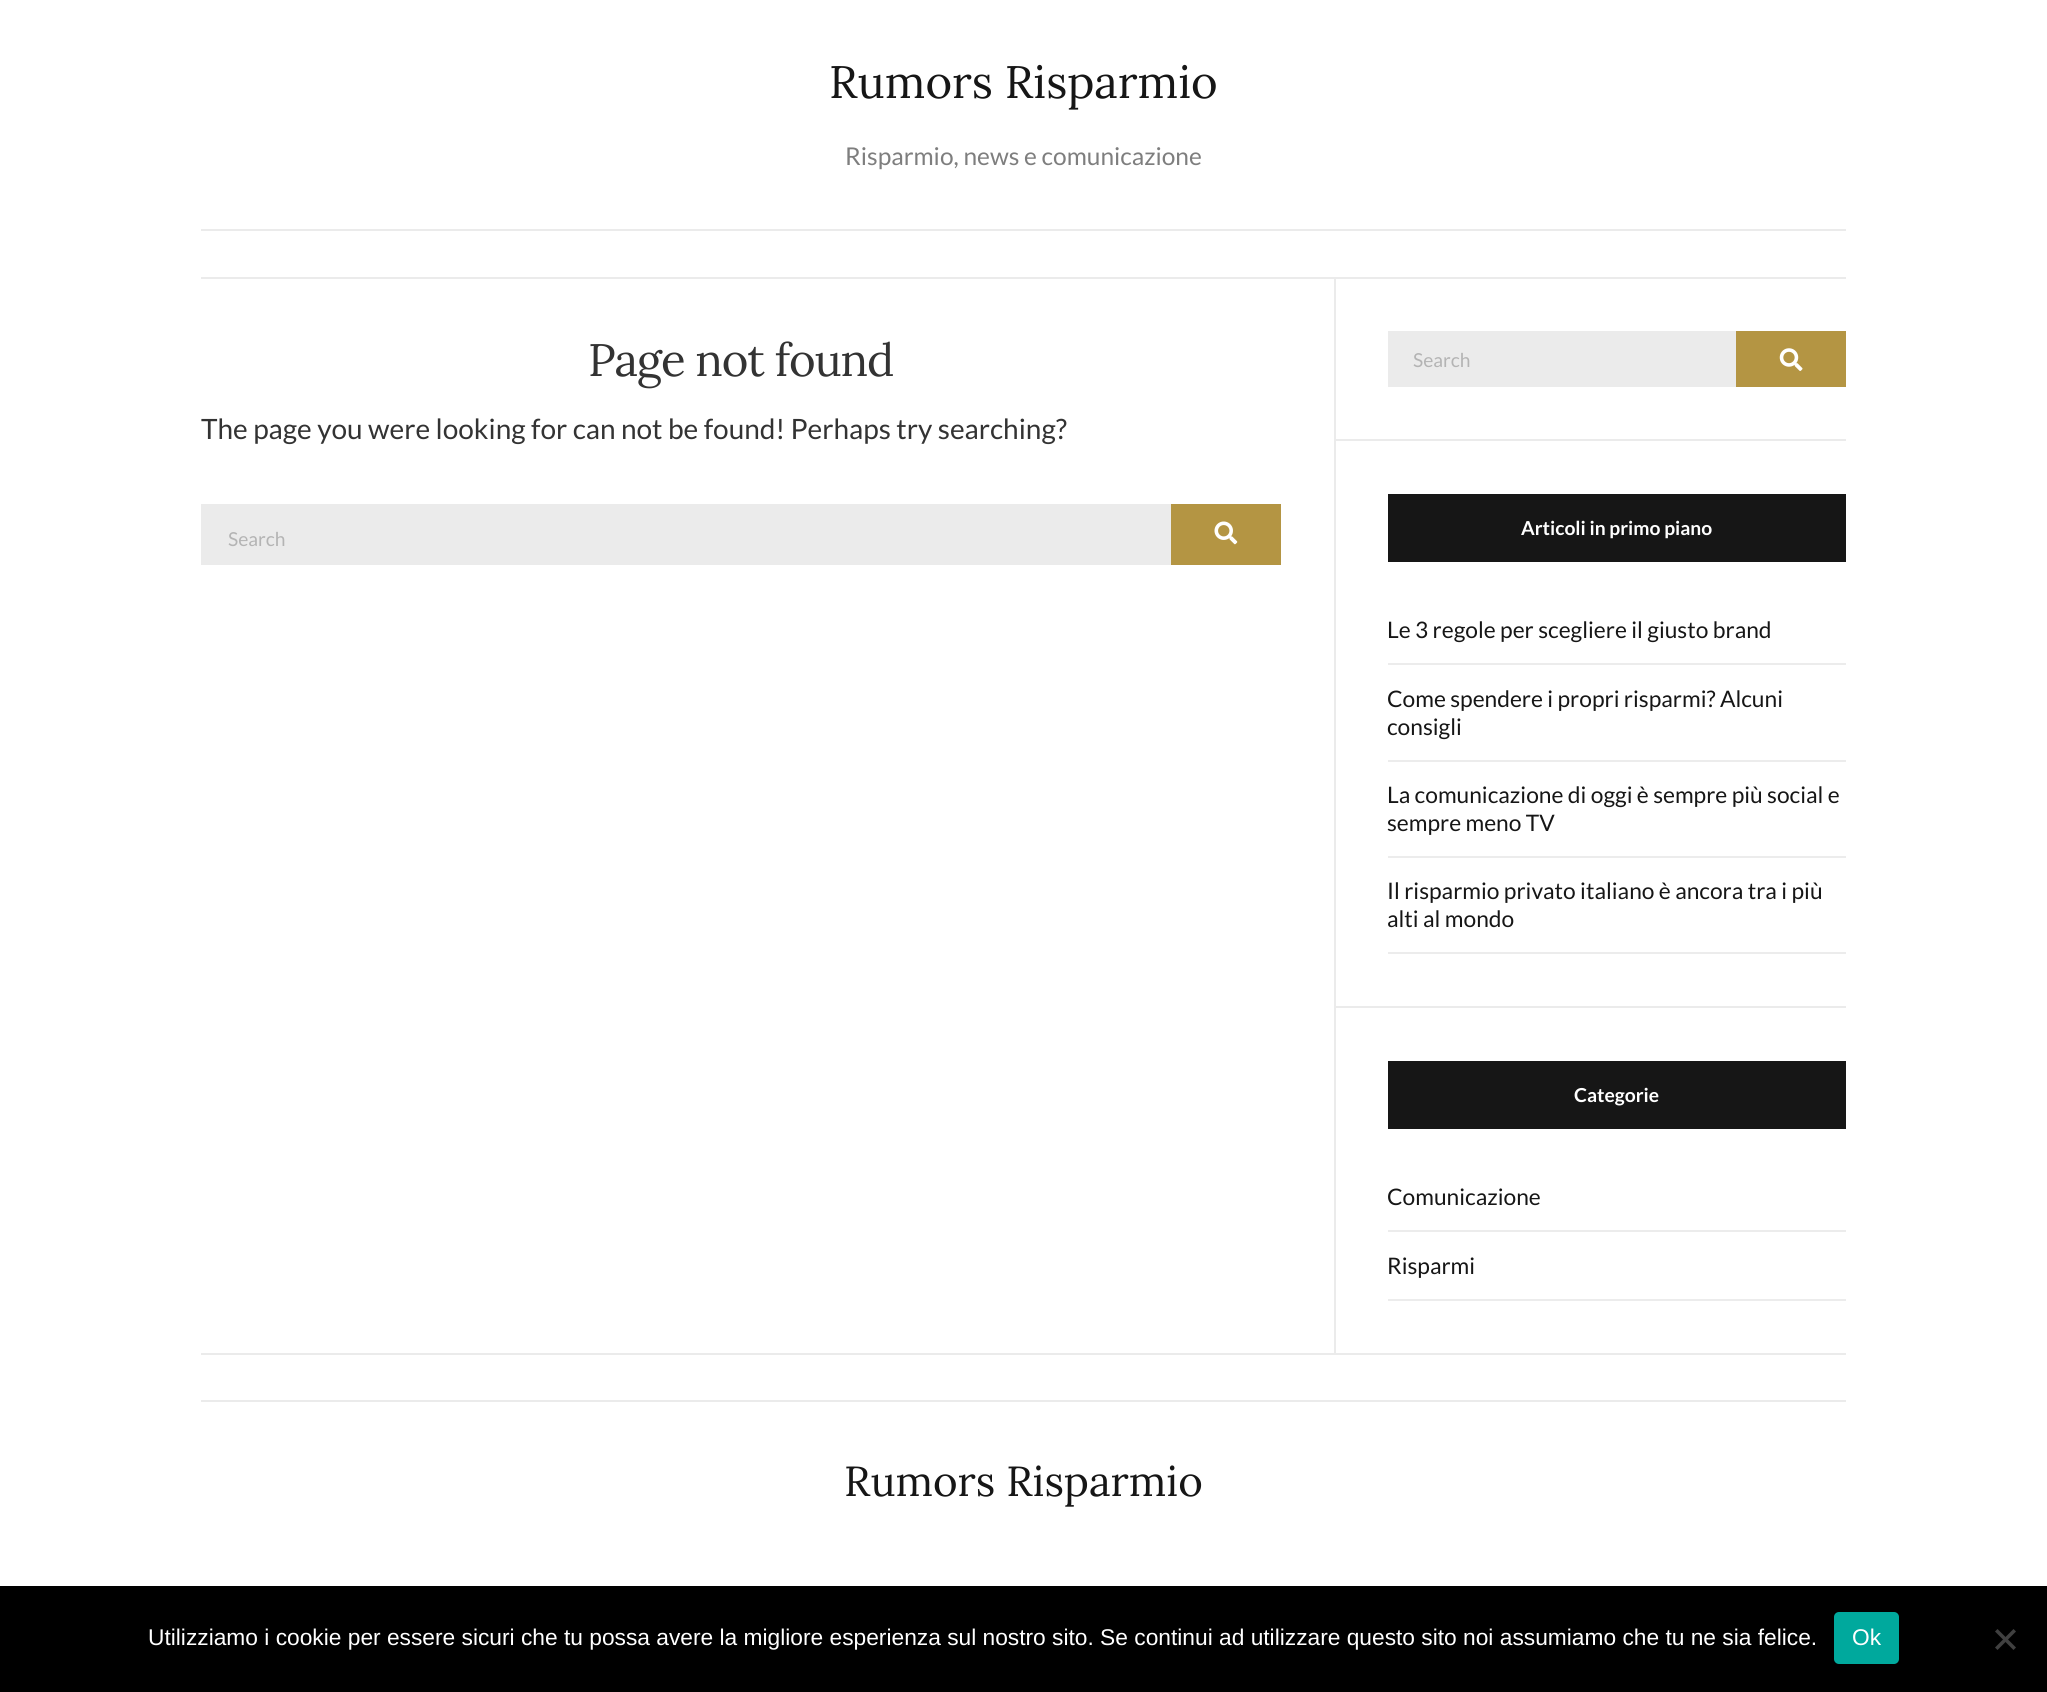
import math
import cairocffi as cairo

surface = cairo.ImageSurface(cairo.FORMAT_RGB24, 2047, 1692)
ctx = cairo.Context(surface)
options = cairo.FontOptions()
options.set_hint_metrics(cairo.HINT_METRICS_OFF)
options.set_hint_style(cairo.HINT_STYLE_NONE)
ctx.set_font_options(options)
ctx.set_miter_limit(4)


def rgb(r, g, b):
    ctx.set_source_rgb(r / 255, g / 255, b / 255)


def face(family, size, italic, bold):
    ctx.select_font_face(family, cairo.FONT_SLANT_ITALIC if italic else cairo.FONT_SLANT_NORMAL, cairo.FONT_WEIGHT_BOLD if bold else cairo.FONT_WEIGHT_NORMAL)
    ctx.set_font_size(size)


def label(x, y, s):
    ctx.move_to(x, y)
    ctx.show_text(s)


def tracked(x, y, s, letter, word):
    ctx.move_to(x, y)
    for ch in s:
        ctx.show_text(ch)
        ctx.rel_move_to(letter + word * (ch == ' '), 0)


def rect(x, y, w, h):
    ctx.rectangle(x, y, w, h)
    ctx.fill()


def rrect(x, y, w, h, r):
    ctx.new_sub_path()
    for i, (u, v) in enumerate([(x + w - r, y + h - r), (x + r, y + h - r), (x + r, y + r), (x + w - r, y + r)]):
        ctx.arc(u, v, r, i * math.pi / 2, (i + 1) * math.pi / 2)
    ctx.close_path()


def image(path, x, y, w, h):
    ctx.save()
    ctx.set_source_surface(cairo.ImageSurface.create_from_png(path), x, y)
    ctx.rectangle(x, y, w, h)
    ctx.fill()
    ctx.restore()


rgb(255, 255, 255)
ctx.paint()
face('Lora', 45.5, 0, 0)
rgb(22, 22, 22)
label(829, 98, 'Rumors Risparmio')
face('Lato', 24.5, 0, 0)
rgb(126, 126, 126)
label(845, 165, 'Risparmio, news e comunicazione')
rgb(235, 235, 235)
rect(201, 229, 1645, 2)
rect(201, 277, 1645, 2)
face('Lora', 45.5, 0, 0)
rgb(51, 51, 51)
tracked(588, 376, 'Page not found', -1.1, 0)
face('Lato', 28, 0, 0)
label(201, 439, 'The page you were looking for can not be found! Perhaps try searching?')
rgb(235, 235, 235)
rect(201, 504, 970, 61)
face('Lato', 19.25, 0, 0)
rgb(180, 180, 180)
label(228, 546, 'Search')
rgb(180, 149, 67)
rect(1171, 504, 110, 61)
image('image0.png', 1214, 521, 24, 24)
rgb(235, 235, 235)
rect(1334, 278, 2, 1075)
rect(1335, 439, 511, 2)
rect(1388, 331, 348, 56)
rgb(180, 180, 180)
label(1413, 367, 'Search')
rgb(180, 149, 67)
rect(1736, 331, 110, 56)
image('image1.png', 1779, 348, 24, 23)
rgb(235, 235, 235)
rect(1335, 1006, 511, 2)
rgb(22, 22, 22)
rect(1388, 494, 458, 68)
face('Lato', 19.25, 0, 1)
rgb(255, 255, 255)
label(1521, 535, 'Articoli in primo piano')
rgb(236, 236, 236)
rect(1388, 663, 458, 2)
face('Lato', 22.75, 0, 0)
rgb(22, 22, 22)
label(1387, 638, 'Le 3 regole per scegliere il giusto brand')
rgb(236, 236, 236)
rect(1388, 760, 458, 2)
rgb(22, 22, 22)
label(1387, 707, 'Come spendere i propri risparmi? Alcuni')
label(1387, 735, 'consigli')
rgb(236, 236, 236)
rect(1388, 856, 458, 2)
rgb(22, 22, 22)
label(1387, 803, 'La comunicazione di oggi è sempre più social e')
label(1387, 831, 'sempre meno TV')
rgb(236, 236, 236)
rect(1388, 952, 458, 2)
rgb(22, 22, 22)
label(1387, 899, 'Il risparmio privato italiano è ancora tra i più')
label(1387, 927, 'alti al mondo')
rect(1388, 1061, 458, 68)
face('Lato', 19.25, 0, 1)
rgb(255, 255, 255)
label(1574, 1102, 'Categorie')
rgb(236, 236, 236)
rect(1388, 1230, 458, 2)
face('Lato', 22.75, 0, 0)
rgb(22, 22, 22)
label(1387, 1205, 'Comunicazione')
rgb(236, 236, 236)
rect(1388, 1299, 458, 2)
rgb(22, 22, 22)
label(1387, 1274, 'Risparmi')
rgb(235, 235, 235)
rect(201, 1353, 1645, 2)
rect(201, 1400, 1645, 2)
face('Lora', 42, 0, 0)
rgb(22, 22, 22)
label(844, 1496, 'Rumors Risparmio')
rgb(0, 0, 0)
rect(0, 1586, 2047, 106)
face('Liberation Sans', 22.75, 0, 0)
rgb(255, 255, 255)
label(148, 1645, 'Utilizziamo i cookie per essere sicuri che tu possa avere la migliore esperienza sul nostro sito. Se continui ad utilizzare questo sito noi assumiamo che tu ne sia felice.')
rgb(0, 169, 157)
rrect(1834, 1612, 65, 52, 5)
ctx.fill()
rgb(255, 255, 255)
label(1852, 1645, 'Ok')
rgb(64, 64, 64)
ctx.new_path()
ctx.move_to(2013.5, 1629)
ctx.line_to(2016, 1631.5)
ctx.line_to(1997.5, 1650)
ctx.line_to(1995, 1647.5)
ctx.close_path()
ctx.fill()
ctx.new_path()
ctx.move_to(1995, 1631.5)
ctx.line_to(1997.5, 1629)
ctx.line_to(2016, 1647.5)
ctx.line_to(2013.5, 1650)
ctx.close_path()
ctx.fill()
surface.write_to_png('render.png')
